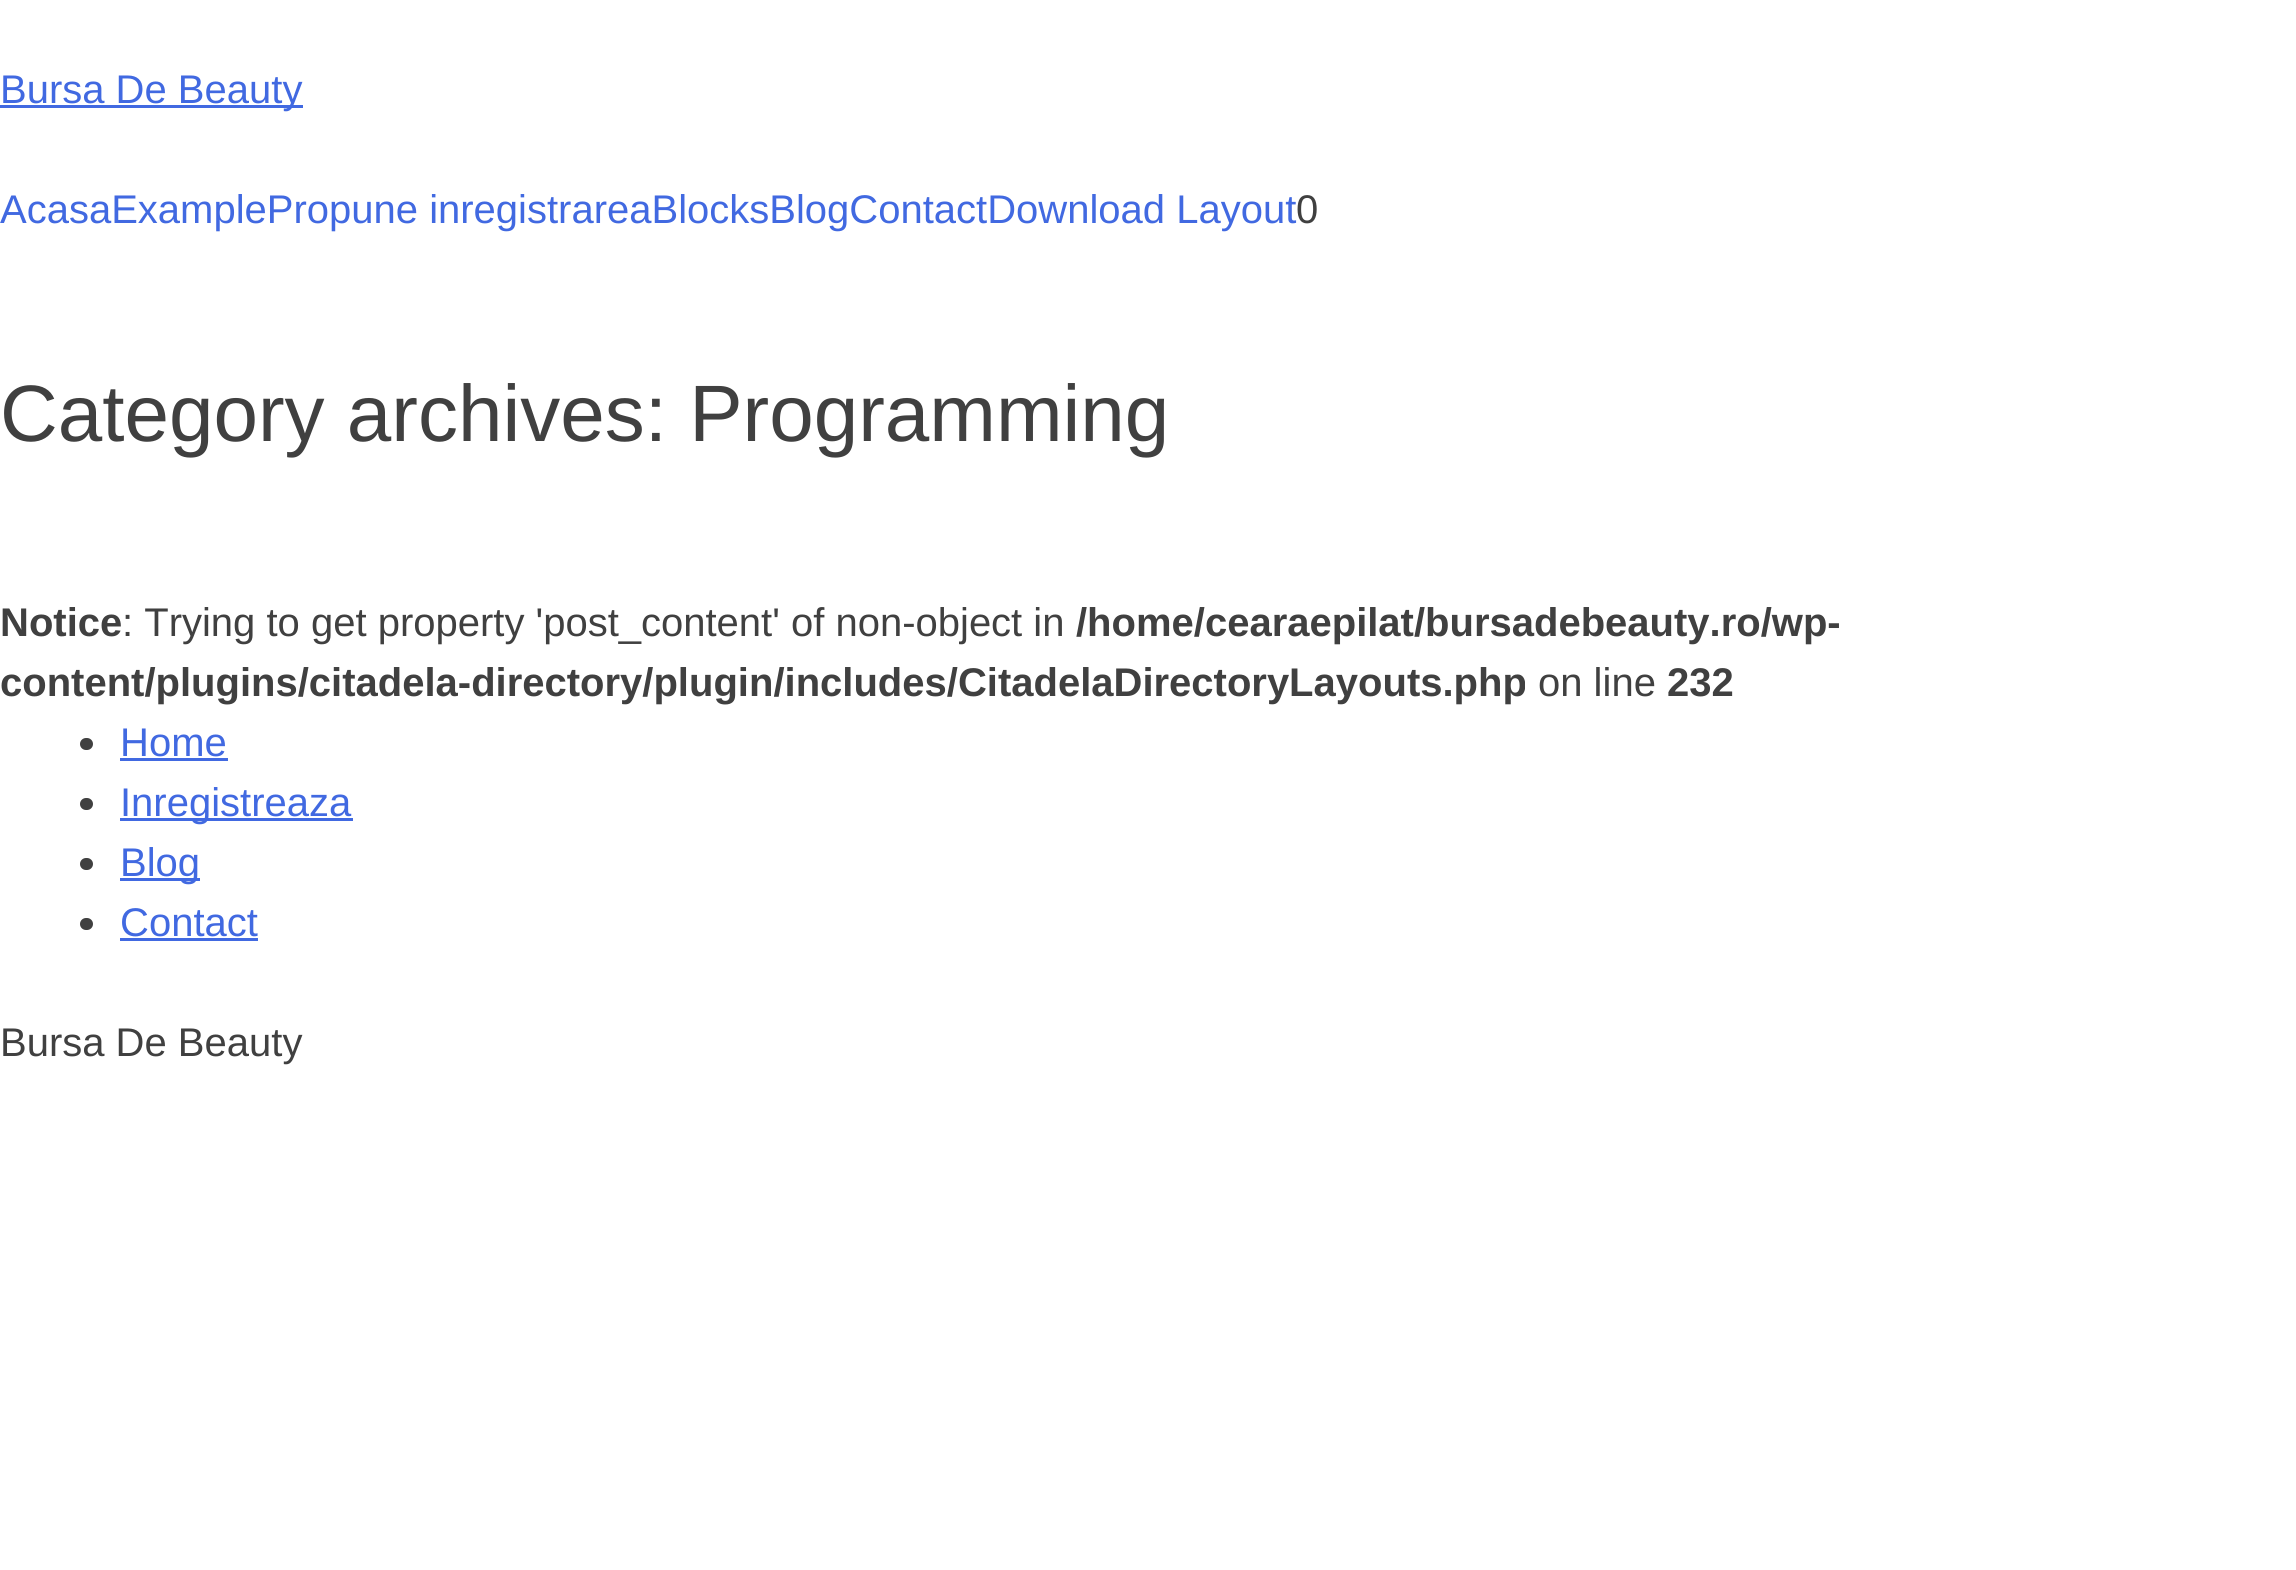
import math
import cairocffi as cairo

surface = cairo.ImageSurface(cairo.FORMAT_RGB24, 2296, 1570)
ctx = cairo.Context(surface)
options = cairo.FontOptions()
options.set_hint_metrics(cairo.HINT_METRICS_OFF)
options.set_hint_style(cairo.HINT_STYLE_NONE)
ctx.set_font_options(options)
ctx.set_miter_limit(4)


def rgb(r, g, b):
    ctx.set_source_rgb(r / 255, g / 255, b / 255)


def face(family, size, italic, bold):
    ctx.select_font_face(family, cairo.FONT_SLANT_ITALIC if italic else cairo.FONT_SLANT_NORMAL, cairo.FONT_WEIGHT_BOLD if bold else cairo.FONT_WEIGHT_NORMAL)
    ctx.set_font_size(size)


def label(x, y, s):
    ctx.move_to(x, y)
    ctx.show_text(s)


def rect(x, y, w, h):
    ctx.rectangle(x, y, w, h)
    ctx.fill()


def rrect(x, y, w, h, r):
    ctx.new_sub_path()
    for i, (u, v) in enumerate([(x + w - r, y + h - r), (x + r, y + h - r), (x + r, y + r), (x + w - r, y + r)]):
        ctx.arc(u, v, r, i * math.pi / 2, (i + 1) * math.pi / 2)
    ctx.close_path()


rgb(255, 255, 255)
ctx.paint()
rgb(65, 105, 225)
rect(0, 105, 303, 3)
face('Liberation Sans', 40, 0, 0)
label(0, 103, 'Bursa De Beauty')
label(0, 223, 'AcasaExamplePropune inregistrareaBlocksBlogContactDownload Layout')
rgb(64, 64, 64)
label(1296, 223, '0')
face('Liberation Sans', 80, 0, 0)
label(0, 441, 'Category archives: Programming')
face('Liberation Sans', 40, 0, 1)
label(0, 636, 'Notice')
face('Liberation Sans', 40, 0, 0)
label(122, 636, ': Trying to get property \'post_content\' of non-object in')
face('Liberation Sans', 40, 0, 1)
label(1076, 636, '/home/cearaepilat/bursadebeauty.ro/wp-')
label(0, 696, 'content/plugins/citadela-directory/plugin/includes/CitadelaDirectoryLayouts.php')
face('Liberation Sans', 40, 0, 0)
label(1538, 696, 'on line')
face('Liberation Sans', 40, 0, 1)
label(1667, 696, '232')
rrect(80, 738, 13, 12, 6)
ctx.fill()
face('Liberation Sans', 40, 0, 0)
rgb(65, 105, 225)
label(120, 756, 'Home')
rect(120, 758, 108, 3)
rgb(64, 64, 64)
rrect(80, 798, 13, 12, 6)
ctx.fill()
rgb(65, 105, 225)
rect(120, 818, 233, 3)
label(120, 816, 'Inregistreaza')
rgb(64, 64, 64)
rrect(80, 858, 13, 12, 6)
ctx.fill()
rgb(65, 105, 225)
rect(120, 878, 80, 3)
label(120, 876, 'Blog')
rgb(64, 64, 64)
rrect(80, 918, 13, 12, 6)
ctx.fill()
rgb(65, 105, 225)
label(120, 936, 'Contact')
rect(120, 938, 138, 3)
rgb(64, 64, 64)
label(0, 1056, 'Bursa De Beauty')
surface.write_to_png('render.png')
